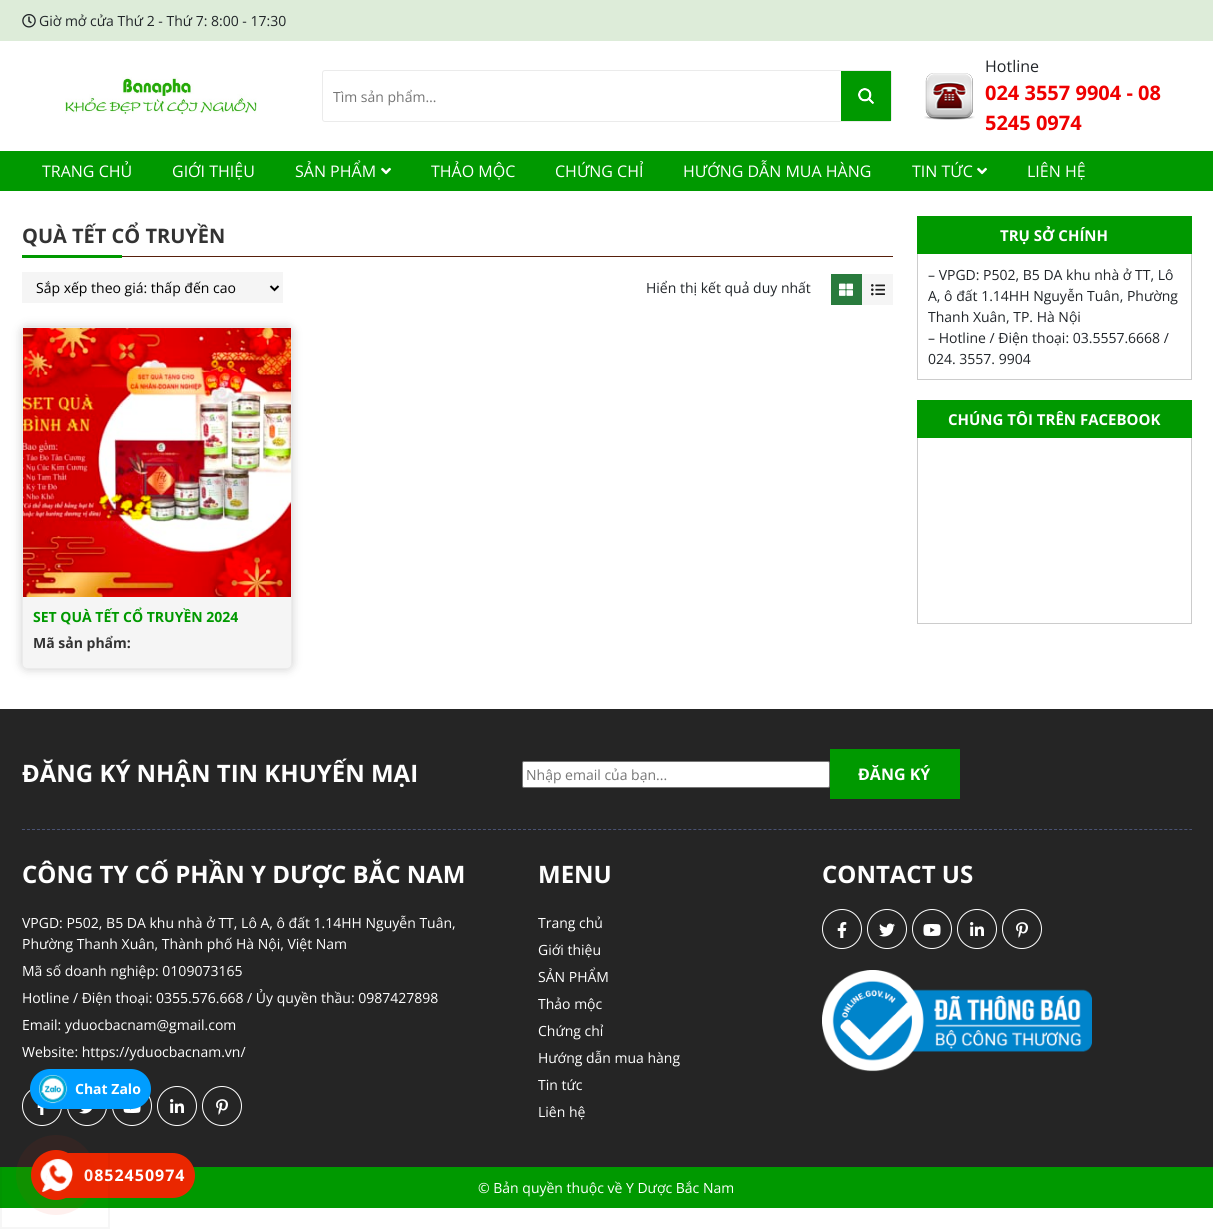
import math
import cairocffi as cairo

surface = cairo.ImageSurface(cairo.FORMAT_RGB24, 1213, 1229)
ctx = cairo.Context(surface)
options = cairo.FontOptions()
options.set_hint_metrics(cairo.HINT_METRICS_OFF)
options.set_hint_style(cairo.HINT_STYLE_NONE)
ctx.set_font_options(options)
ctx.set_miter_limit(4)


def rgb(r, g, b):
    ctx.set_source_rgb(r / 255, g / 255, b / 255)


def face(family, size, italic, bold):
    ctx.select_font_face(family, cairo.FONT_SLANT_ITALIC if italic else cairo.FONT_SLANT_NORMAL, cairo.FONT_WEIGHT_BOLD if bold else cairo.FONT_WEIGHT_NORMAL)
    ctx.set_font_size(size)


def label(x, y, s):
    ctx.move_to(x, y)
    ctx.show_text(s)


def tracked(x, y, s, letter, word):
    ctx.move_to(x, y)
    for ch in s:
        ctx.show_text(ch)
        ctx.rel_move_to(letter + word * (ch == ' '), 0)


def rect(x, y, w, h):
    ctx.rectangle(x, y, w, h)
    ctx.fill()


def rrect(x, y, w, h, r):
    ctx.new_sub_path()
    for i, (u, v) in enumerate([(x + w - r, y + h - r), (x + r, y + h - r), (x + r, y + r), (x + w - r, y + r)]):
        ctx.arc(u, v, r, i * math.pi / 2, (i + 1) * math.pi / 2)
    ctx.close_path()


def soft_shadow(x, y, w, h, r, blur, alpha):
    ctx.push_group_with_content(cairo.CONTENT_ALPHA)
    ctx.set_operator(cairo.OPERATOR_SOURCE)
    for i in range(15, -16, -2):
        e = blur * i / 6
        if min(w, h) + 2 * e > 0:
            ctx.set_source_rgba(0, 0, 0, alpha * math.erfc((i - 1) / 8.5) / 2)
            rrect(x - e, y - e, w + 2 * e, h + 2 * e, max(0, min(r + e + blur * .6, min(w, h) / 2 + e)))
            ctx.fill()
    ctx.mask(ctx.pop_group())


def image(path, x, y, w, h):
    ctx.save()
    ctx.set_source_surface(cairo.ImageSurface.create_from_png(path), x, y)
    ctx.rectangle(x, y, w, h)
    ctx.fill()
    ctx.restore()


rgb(255, 255, 255)
ctx.paint()
rgb(221, 236, 217)
rect(0, 0, 1213, 41)
image('image0.png', 22, 14, 14, 14)
face('Open Sans', 14, 0, 0)
rgb(33, 37, 41)
label(39, 26, 'Giờ mở cửa Thứ 2 - Thứ 7: 8:00 - 17:30')
image('image1.png', 65, 77, 192, 38)
rrect(322.5, 70.5, 569, 51, 2.5)
rgb(235, 235, 235)
ctx.set_line_width(1)
ctx.stroke()
rgb(117, 117, 117)
label(333, 102, 'Tìm sản phẩm…')
rgb(0, 153, 0)
rect(841, 71, 50, 50)
image('image2.png', 858, 88, 16, 16)
image('image3.png', 924, 73, 51, 47)
face('Open Sans', 16, 0, 0)
rgb(33, 37, 41)
label(985, 72, 'Hotline')
face('Open Sans', 20, 0, 1)
rgb(239, 0, 0)
label(985, 100, '024 3557 9904 - 08')
label(985, 130, '5245 0974')
rgb(0, 153, 0)
rect(0, 151, 1213, 40)
face('Open Sans', 16, 0, 0)
rgb(255, 255, 255)
label(42, 177, 'TRANG CHỦ')
label(172, 177, 'GIỚI THIỆU')
label(295, 177, 'SẢN PHẨM')
image('image4.png', 381, 167, 10, 8)
label(431, 177, 'THẢO MỘC')
label(555, 177, 'CHỨNG CHỈ')
label(683, 177, 'HƯỚNG DẪN MUA HÀNG')
label(912, 177, 'TIN TỨC')
image('image4.png', 977, 167, 10, 8)
label(1027, 177, 'LIÊN HỆ')
rgb(86, 31, 11)
rect(122, 256, 771, 1)
face('Open Sans', 20, 0, 1)
rgb(51, 51, 51)
label(22, 243, 'QUÀ TẾT CỔ TRUYỀN')
rgb(0, 153, 0)
rect(22, 255, 100, 3)
rgb(245, 245, 245)
rect(22, 272, 261, 31)
ctx.new_path()
ctx.move_to(270.5, 286)
ctx.line_to(274.5, 290)
ctx.line_to(278.5, 286)
rgb(0, 0, 0)
ctx.set_line_width(2)
ctx.stroke()
face('Open Sans', 14, 0, 0)
label(36, 293, 'Sắp xếp theo giá: thấp đến cao')
rgb(33, 37, 41)
label(646, 293, 'Hiển thị kết quả duy nhất')
rgb(41, 123, 61)
rect(831, 274, 31, 31)
image('image5.png', 839, 283, 14, 13)
rgb(245, 245, 245)
rect(862, 274, 31, 31)
image('image6.png', 871, 284, 14, 12)
rgb(0, 0, 0)
soft_shadow(22, 327, 270, 342, 5, 5, 0.2)
rgb(245, 245, 245)
rrect(22.5, 327.5, 269, 341, 4.5)
ctx.fill_preserve()
rgb(235, 235, 235)
ctx.set_line_width(1)
ctx.stroke()
image('image7.png', 23, 328, 268, 269)
face('Open Sans', 14, 0, 1)
rgb(0, 153, 0)
label(33, 622, 'SET QUÀ TẾT CỔ TRUYỀN 2024')
rgb(51, 51, 51)
label(33, 648, 'Mã sản phẩm:')
rgb(0, 153, 0)
rect(917, 216, 275, 38)
face('Open Sans', 15, 0, 1)
rgb(255, 255, 255)
label(1000, 241, 'TRỤ SỞ CHÍNH')
rgb(204, 204, 204)
rect(1191, 254, 1, 126)
rect(917, 379, 275, 1)
rect(917, 254, 1, 126)
face('Open Sans', 14, 0, 0)
rgb(33, 37, 41)
label(928, 280, '– VPGD: P502, B5 DA khu nhà ở TT, Lô')
label(928, 301, 'A, ô đất 1.14HH Nguyễn Tuân, Phường')
label(928, 322, 'Thanh Xuân, TP. Hà Nội')
label(928, 343, '– Hotline / Điện thoại: 03.5557.6668 /')
label(928, 364, '024. 3557. 9904')
rgb(0, 153, 0)
rect(917, 400, 275, 38)
face('Open Sans', 15, 0, 1)
rgb(255, 255, 255)
label(948, 425, 'CHÚNG TÔI TRÊN FACEBOOK')
rgb(204, 204, 204)
rect(1191, 438, 1, 186)
rect(917, 623, 275, 1)
rect(917, 438, 1, 186)
rgb(37, 37, 37)
rect(0, 709, 1213, 458)
ctx.new_path()
ctx.move_to(22, 829.5)
ctx.line_to(1192, 829.5)
rgb(74, 82, 115)
ctx.set_dash([3, 2.01])
ctx.stroke()
face('Open Sans', 24, 0, 1)
rgb(255, 255, 255)
label(22, 782, 'ĐĂNG KÝ NHẬN TIN KHUYẾN MẠI')
rrect(522.5, 761.5, 307, 26, 1.5)
ctx.fill_preserve()
rgb(118, 118, 118)
ctx.set_dash([])
ctx.stroke()
face('Open Sans', 14, 0, 0)
rgb(117, 117, 117)
label(526, 780, 'Nhập email của bạn...')
rgb(0, 153, 0)
rect(830, 749, 130, 50)
face('Open Sans', 16, 0, 1)
rgb(255, 255, 255)
label(858, 780, 'ĐĂNG KÝ')
face('Open Sans', 24, 0, 1)
label(22, 883, 'CÔNG TY CỐ PHẦN Y DƯỢC BẮC NAM')
face('Open Sans', 14, 0, 0)
label(22, 928, 'VPGD: P502, B5 DA khu nhà ở TT, Lô A, ô đất 1.14HH Nguyễn Tuân,')
label(22, 949, 'Phường Thanh Xuân, Thành phố Hà Nội, Việt Nam')
label(22, 976, 'Mã số doanh nghiệp: 0109073165')
label(22, 1003, 'Hotline / Điện thoại: 0355.576.668 / Ủy quyền thầu: 0987427898')
label(22, 1030, 'Email: yduocbacnam@gmail.com')
label(22, 1057, 'Website: https://yduocbacnam.vn/')
ctx.new_path()
ctx.arc(42, 1106, 19.5, 0, 2 * math.pi)
ctx.stroke()
image('image8.png', 37, 1105, 7, 10)
ctx.arc(87, 1106, 19.5, 0, 2 * math.pi)
ctx.stroke()
image('image9.png', 79, 1109, 13, 5)
ctx.arc(132, 1106, 19.5, 0, 2 * math.pi)
ctx.stroke()
image('image10.png', 123, 1106, 18, 7)
ctx.arc(177, 1106, 19.5, 0, 2 * math.pi)
ctx.stroke()
image('image11.png', 170, 1099, 14, 14)
ctx.arc(222, 1106, 19.5, 0, 2 * math.pi)
ctx.stroke()
image('image12.png', 216, 1099, 12, 16)
face('Open Sans', 24, 0, 1)
label(538, 883, 'MENU')
face('Open Sans', 14, 0, 0)
label(538, 928, 'Trang chủ')
label(538, 955, 'Giới thiệu')
label(538, 982, 'SẢN PHẨM')
label(538, 1009, 'Thảo mộc')
label(538, 1036, 'Chứng chỉ')
label(538, 1063, 'Hướng dẫn mua hàng')
label(538, 1090, 'Tin tức')
label(538, 1117, 'Liên hệ')
face('Open Sans', 24, 0, 1)
label(822, 883, 'CONTACT US')
ctx.new_path()
ctx.arc(842, 929, 19.5, 0, 2 * math.pi)
ctx.stroke()
image('image13.png', 837, 922, 10, 16)
ctx.arc(887, 929, 19.5, 0, 2 * math.pi)
ctx.stroke()
image('image14.png', 879, 923, 16, 14)
ctx.arc(932, 929, 19.5, 0, 2 * math.pi)
ctx.stroke()
image('image15.png', 923, 924, 18, 12)
ctx.arc(977, 929, 19.5, 0, 2 * math.pi)
ctx.stroke()
image('image11.png', 970, 922, 14, 14)
ctx.arc(1022, 929, 19.5, 0, 2 * math.pi)
ctx.stroke()
image('image12.png', 1016, 922, 12, 16)
image('image16.png', 822, 970, 270, 102)
rgb(0, 153, 0)
rect(0, 1167, 1213, 41)
face('Open Sans', 14, 0, 0)
rgb(255, 255, 255)
label(478, 1193, '© Bản quyền thuộc về Y Dược Bắc Nam')
rgb(0, 157, 255)
rrect(30, 1069, 121, 40, 20)
ctx.fill()
image('image17.png', 39, 1075, 29, 29)
face('Open Sans', 14, 0, 1)
rgb(255, 255, 255)
label(75, 1094, 'Chat Zalo')
rgb(234, 39, 0)
rrect(42, 1153, 153, 45, 22.5)
ctx.fill()
face('Open Sans', 16, 0, 1)
rgb(255, 255, 255)
tracked(84, 1181, '0852450974', 1, 0)
ctx.rectangle(1, 1120, 108, 108)
ctx.set_source_rgba(0.118, 0.118, 0.118, 0.04)
ctx.set_line_width(2)
ctx.stroke()
ctx.set_source_rgba(0.918, 0.153, 0, 0.07)
ctx.arc(56, 1175, 40, 0, 2 * math.pi)
ctx.fill()
rgb(234, 39, 0)
ctx.arc(56, 1175, 25, 0, 2 * math.pi)
ctx.fill()
image('image18.png', 40, 1158, 33, 34)
surface.write_to_png('render.png')
